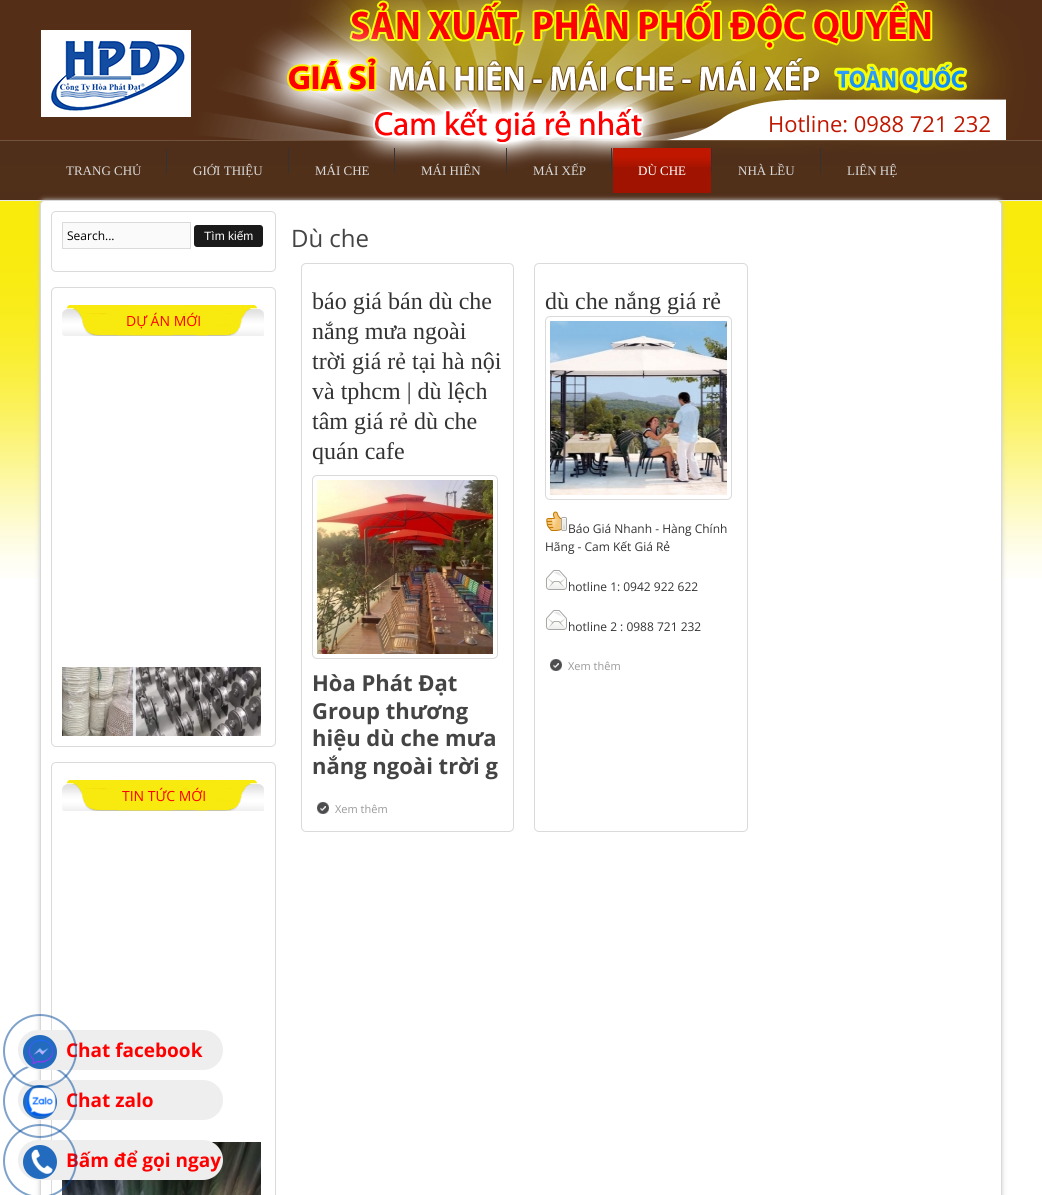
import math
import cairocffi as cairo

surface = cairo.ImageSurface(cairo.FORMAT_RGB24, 1042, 1195)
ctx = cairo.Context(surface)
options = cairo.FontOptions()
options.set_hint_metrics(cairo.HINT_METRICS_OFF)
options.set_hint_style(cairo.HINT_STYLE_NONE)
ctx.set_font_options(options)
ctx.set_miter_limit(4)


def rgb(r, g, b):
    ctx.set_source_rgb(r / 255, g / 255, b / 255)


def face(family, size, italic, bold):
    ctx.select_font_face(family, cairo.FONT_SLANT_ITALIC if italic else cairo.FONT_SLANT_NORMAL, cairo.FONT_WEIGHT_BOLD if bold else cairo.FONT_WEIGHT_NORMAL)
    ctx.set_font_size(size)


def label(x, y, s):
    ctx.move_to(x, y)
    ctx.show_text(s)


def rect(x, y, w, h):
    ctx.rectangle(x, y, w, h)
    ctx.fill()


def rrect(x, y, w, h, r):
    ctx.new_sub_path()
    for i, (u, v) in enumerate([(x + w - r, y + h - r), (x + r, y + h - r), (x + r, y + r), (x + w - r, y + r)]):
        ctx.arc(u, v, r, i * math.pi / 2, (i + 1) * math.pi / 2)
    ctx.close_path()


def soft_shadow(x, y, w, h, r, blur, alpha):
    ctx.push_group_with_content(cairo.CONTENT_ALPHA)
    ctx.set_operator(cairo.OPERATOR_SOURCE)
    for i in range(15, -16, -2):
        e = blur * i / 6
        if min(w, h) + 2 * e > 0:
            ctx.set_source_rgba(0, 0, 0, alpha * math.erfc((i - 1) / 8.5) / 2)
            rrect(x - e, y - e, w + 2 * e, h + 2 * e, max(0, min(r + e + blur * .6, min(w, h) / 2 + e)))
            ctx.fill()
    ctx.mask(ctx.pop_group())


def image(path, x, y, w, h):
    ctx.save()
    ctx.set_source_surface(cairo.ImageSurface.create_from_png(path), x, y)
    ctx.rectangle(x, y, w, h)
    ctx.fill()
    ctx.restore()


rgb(255, 255, 255)
ctx.paint()
image('image0.png', 0, 0, 1042, 578)
image('image1.png', 41, 30, 150, 87)
face('Open Sans', 22, 0, 0)
rgb(192, 23, 0)
label(768, 132, 'Hotline: 0988 721 232')
face('Liberation Serif', 13, 0, 0)
rgb(217, 217, 217)
label(66, 175, 'TRANG CHỦ')
rgb(51, 51, 51)
rect(166, 148, 1, 25)
rgb(217, 217, 217)
label(193, 175, 'GIỚI THIỆU')
rgb(51, 51, 51)
rect(288, 148, 1, 25)
rgb(217, 217, 217)
label(315, 175, 'MÁI CHE')
rgb(51, 51, 51)
rect(394, 148, 1, 25)
rgb(217, 217, 217)
label(421, 175, 'MÁI HIÊN')
rgb(51, 51, 51)
rect(506, 148, 1, 25)
rgb(217, 217, 217)
label(533, 175, 'MÁI XẾP')
rgb(51, 51, 51)
rect(611, 148, 1, 25)
rgb(204, 204, 204)
soft_shadow(40, 200, 962, 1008, 5, 2.5, 1)
rgb(160, 19, 0)
rect(613, 167, 98, 26)
image('image2.png', 613, 148, 98, 19)
rgb(255, 255, 255)
label(638, 175, 'DÙ CHE')
rgb(51, 51, 51)
rect(711, 148, 1, 25)
rgb(217, 217, 217)
label(738, 175, 'NHÀ LỀU')
rgb(51, 51, 51)
rect(820, 148, 1, 25)
rgb(217, 217, 217)
label(847, 175, 'LIÊN HỆ')
rgb(255, 255, 255)
rrect(40.5, 200.5, 961, 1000, 4.5)
ctx.fill_preserve()
rgb(217, 217, 217)
ctx.set_line_width(1)
ctx.stroke()
rrect(51.5, 211.5, 224, 60, 4.5)
rgb(218, 218, 218)
ctx.stroke()
rgb(250, 250, 250)
ctx.rectangle(62.5, 222.5, 128, 26)
ctx.fill_preserve()
rgb(219, 218, 218)
ctx.stroke()
face('Open Sans', 12, 0, 0)
rgb(0, 0, 0)
label(67, 240, 'Search...')
rgb(26, 26, 26)
rrect(194, 225, 69, 22, 3)
ctx.fill()
face('Liberation Sans', 12, 0, 0)
rgb(255, 255, 255)
label(204, 240, 'Tìm kiếm')
rrect(51.5, 287.5, 224, 459, 4.5)
rgb(218, 218, 218)
ctx.stroke()
image('image3.png', 62, 305, 202, 31)
face('Open Sans', 14, 0, 0)
rgb(255, 0, 0)
label(126, 326, 'DỰ ÁN MỚI')
image('image4.png', 62, 667, 199, 69)
rrect(51.5, 762.5, 224, 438, 4.5)
rgb(218, 218, 218)
ctx.stroke()
image('image3.png', 62, 780, 202, 31)
rgb(255, 0, 0)
label(122, 801, 'TIN TỨC MỚI')
image('image5.png', 62, 1142, 199, 53)
face('Open Sans', 24, 0, 0)
rgb(68, 68, 68)
label(291, 247, 'Dù che')
rrect(301.5, 263.5, 212, 568, 4.5)
rgb(218, 218, 218)
ctx.stroke()
face('Liberation Serif', 24, 0, 0)
rgb(51, 51, 51)
label(312, 309, 'báo giá bán dù che')
label(312, 339, 'nắng mưa ngoài')
label(312, 369, 'trời giá rẻ tại hà nội')
label(312, 399, 'và tphcm | dù lệch')
label(312, 429, 'tâm giá rẻ dù che')
label(312, 459, 'quán cafe')
rrect(312.5, 475.5, 185, 183, 4.5)
rgb(218, 218, 218)
ctx.stroke()
image('image6.png', 317, 480, 176, 174)
face('Open Sans', 22, 0, 1)
rgb(68, 68, 68)
label(312, 691, 'Hòa Phát Đạt')
label(312, 719, 'Group thương')
label(312, 746, 'hiệu dù che mưa')
label(312, 774, 'nắng ngoài trời g')
image('image7.png', 317, 802, 12, 12)
face('Open Sans', 11, 0, 0)
rgb(153, 153, 153)
label(335, 813, 'Xem thêm')
rrect(534.5, 263.5, 213, 568, 4.5)
rgb(218, 218, 218)
ctx.stroke()
face('Liberation Serif', 24, 0, 0)
rgb(51, 51, 51)
label(545, 309, 'dù che nắng giá rẻ')
rrect(545.5, 316.5, 186, 183, 4.5)
rgb(218, 218, 218)
ctx.stroke()
image('image8.png', 550, 321, 177, 174)
image('image9.png', 546, 511, 21, 20)
face('Open Sans', 12, 0, 0)
rgb(51, 51, 51)
label(568, 533, 'Báo Giá Nhanh - Hàng Chính')
label(545, 551, 'Hãng - Cam Kết Giá Rẻ')
image('image10.png', 546, 570, 21, 20)
label(568, 591, 'hotline 1: 0942 922 622')
image('image10.png', 546, 610, 21, 20)
label(568, 631, 'hotline 2 : 0988 721 232')
image('image7.png', 550, 659, 12, 12)
face('Open Sans', 11, 0, 0)
rgb(153, 153, 153)
label(568, 670, 'Xem thêm')
rgb(238, 238, 238)
rrect(18, 1080, 205, 40, 20)
ctx.fill()
face('Open Sans', 19, 0, 1)
rgb(255, 0, 0)
label(66, 1107, 'Chat zalo')
rgb(238, 238, 238)
rrect(18, 1140, 205, 40, 20)
ctx.fill()
rgb(255, 0, 0)
label(66, 1167, 'Bấm để gọi ngay')
ctx.new_path()
ctx.arc(40, 1161, 36, 0, 2 * math.pi)
ctx.set_source_rgba(0, 0.275, 0.6, 0.5)
ctx.set_line_width(2)
ctx.stroke()
ctx.arc(40, 1101, 36, 0, 2 * math.pi)
ctx.stroke()
rgb(238, 238, 238)
rrect(18, 1030, 205, 40, 20)
ctx.fill()
rgb(255, 0, 0)
label(66, 1057, 'Chat facebook')
rgb(35, 107, 191)
ctx.new_path()
ctx.arc(40, 1102, 17, 0, 2 * math.pi)
ctx.fill()
image('image12.png', 26, 1087, 30, 30)
ctx.arc(40, 1051, 36, 0, 2 * math.pi)
ctx.set_source_rgba(0, 0.275, 0.6, 0.5)
ctx.stroke()
rgb(35, 107, 191)
ctx.arc(40, 1052, 17, 0, 2 * math.pi)
ctx.fill()
image('image11.png', 28, 1039, 26, 26)
ctx.arc(40, 1162, 17, 0, 2 * math.pi)
ctx.fill()
image('image13.png', 31, 1149, 22, 25)
surface.write_to_png('render.png')
